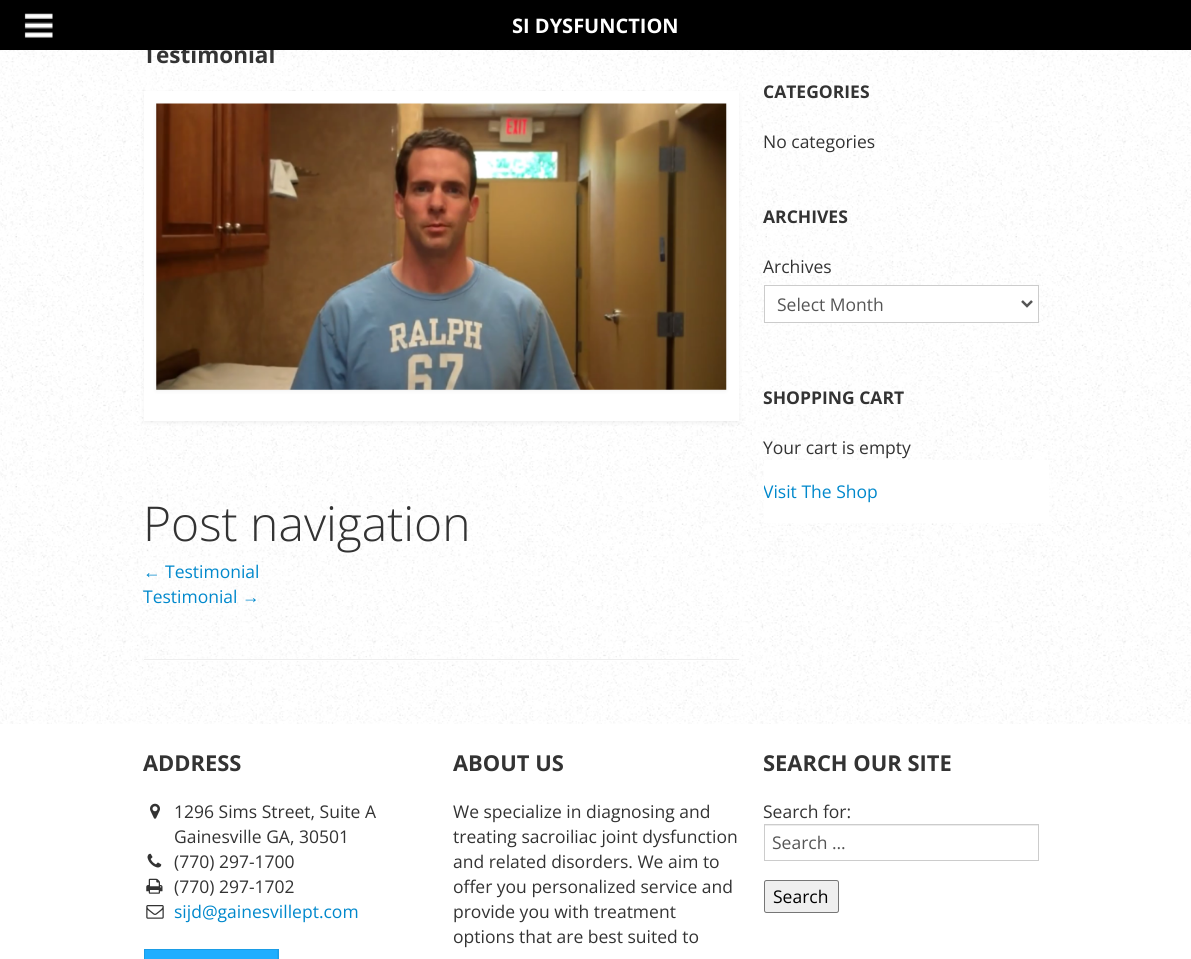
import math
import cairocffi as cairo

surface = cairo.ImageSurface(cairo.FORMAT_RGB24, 1191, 959)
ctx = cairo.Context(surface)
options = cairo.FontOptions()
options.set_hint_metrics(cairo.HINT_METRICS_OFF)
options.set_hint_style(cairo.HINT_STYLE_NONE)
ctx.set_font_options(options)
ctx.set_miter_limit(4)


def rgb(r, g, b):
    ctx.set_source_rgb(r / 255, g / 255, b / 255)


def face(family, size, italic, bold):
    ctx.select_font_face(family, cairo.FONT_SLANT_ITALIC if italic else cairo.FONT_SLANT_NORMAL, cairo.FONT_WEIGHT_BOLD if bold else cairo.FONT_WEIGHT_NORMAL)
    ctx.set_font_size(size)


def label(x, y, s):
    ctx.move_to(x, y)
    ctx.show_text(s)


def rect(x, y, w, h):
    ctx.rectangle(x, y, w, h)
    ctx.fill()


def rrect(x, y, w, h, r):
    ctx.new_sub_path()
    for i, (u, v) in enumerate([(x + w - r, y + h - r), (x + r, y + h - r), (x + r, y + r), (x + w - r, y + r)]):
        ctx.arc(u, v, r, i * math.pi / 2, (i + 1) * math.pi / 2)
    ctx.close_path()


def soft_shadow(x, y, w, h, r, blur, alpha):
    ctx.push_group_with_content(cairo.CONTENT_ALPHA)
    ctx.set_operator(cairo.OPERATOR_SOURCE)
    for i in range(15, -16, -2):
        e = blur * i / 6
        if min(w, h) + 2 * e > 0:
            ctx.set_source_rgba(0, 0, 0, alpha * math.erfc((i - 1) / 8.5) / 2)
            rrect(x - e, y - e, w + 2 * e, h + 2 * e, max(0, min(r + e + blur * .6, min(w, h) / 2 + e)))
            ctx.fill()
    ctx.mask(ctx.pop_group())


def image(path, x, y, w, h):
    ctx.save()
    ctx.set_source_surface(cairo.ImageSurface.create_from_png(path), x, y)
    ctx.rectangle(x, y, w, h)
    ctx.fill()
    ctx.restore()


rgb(255, 255, 255)
ctx.paint()
image('image0.png', 0, 50, 1191, 674)
face('Open Sans', 22.5, 0, 1)
rgb(51, 51, 51)
label(143, 63, 'Testimonial')
rgb(0, 0, 0)
rect(0, 0, 1191, 50)
image('image1.png', 24, 13, 29, 25)
face('Open Sans', 20, 0, 1)
rgb(255, 255, 255)
label(512, 33, 'SI DYSFUNCTION')
rgb(0, 0, 0)
soft_shadow(144, 93, 595, 330, 0, 2, 0.06)
rgb(255, 255, 255)
rect(144, 91, 595, 330)
rgb(0, 0, 0)
soft_shadow(156, 105, 570, 286, 0, 2, 0.06)
image('image2.png', 156, 103, 571, 287)
face('Open Sans Light', 48, 0, 0)
rgb(51, 51, 51)
label(143, 541, 'Post navigation')
face('Liberation Sans', 17.5, 0, 0)
rgb(0, 136, 204)
label(143, 578, '←')
face('Open Sans', 17.5, 0, 0)
label(165, 578, 'Testimonial')
label(143, 603, 'Testimonial')
face('Liberation Sans', 17.5, 0, 0)
label(242, 603, '→')
rgb(238, 238, 238)
rect(144, 659, 595, 1)
rgb(255, 255, 255)
rect(144, 660, 595, 1)
face('Open Sans', 17.5, 0, 1)
rgb(51, 51, 51)
label(763, 98, 'CATEGORIES')
face('Open Sans', 17.5, 0, 0)
label(763, 148, 'No categories')
face('Open Sans', 17.5, 0, 1)
label(763, 223, 'ARCHIVES')
face('Open Sans', 17.5, 0, 0)
label(763, 273, 'Archives')
rgb(255, 255, 255)
ctx.rectangle(764.5, 285.5, 274, 37)
ctx.fill_preserve()
rgb(204, 204, 204)
ctx.set_line_width(1)
ctx.stroke()
ctx.new_path()
ctx.move_to(1022, 301)
ctx.line_to(1027, 306)
ctx.line_to(1032, 301)
rgb(85, 85, 85)
ctx.set_line_width(2.5)
ctx.stroke()
label(777, 311, 'Select Month')
face('Open Sans', 17.5, 0, 1)
rgb(51, 51, 51)
label(763, 404, 'SHOPPING CART')
face('Open Sans', 17.5, 0, 0)
label(763, 454, 'Your cart is empty')
rgb(255, 255, 255)
rect(764, 460, 285, 63)
ctx.save()
ctx.rectangle(764, 460, 285, 63)
ctx.clip()
rgb(0, 136, 204)
label(763, 498, 'Visit The Shop')
ctx.restore()
face('Open Sans', 21.9, 0, 1)
rgb(51, 51, 51)
label(143, 771, 'ADDRESS')
image('image3.png', 150, 803, 10, 16)
face('Open Sans', 17.5, 0, 0)
label(174, 818, '1296 Sims Street, Suite A')
label(174, 843, 'Gainesville GA, 30501')
image('image4.png', 147, 853, 15, 15)
label(174, 868, '(770) 297-1700')
image('image5.png', 146, 878, 17, 16)
label(174, 893, '(770) 297-1702')
image('image6.png', 146, 905, 18, 14)
rgb(0, 136, 204)
label(174, 918, 'sijd@gainesvillept.com')
rgb(31, 174, 255)
rect(144, 949, 135, 10)
rgb(28, 157, 230)
ctx.new_path()
ctx.move_to(144, 949)
ctx.line_to(279, 949)
ctx.line_to(278, 950)
ctx.line_to(145, 950)
ctx.close_path()
ctx.fill()
ctx.set_source_rgba(0, 0, 0, 0.1)
ctx.new_path()
ctx.move_to(279, 949)
ctx.line_to(279, 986)
ctx.line_to(277.5, 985)
ctx.line_to(277.5, 950)
ctx.close_path()
ctx.fill()
ctx.new_path()
ctx.move_to(144, 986)
ctx.line_to(144, 949)
ctx.line_to(145, 950)
ctx.line_to(145, 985)
ctx.close_path()
ctx.fill()
face('Open Sans', 21.9, 0, 1)
rgb(51, 51, 51)
label(453, 771, 'ABOUT US')
face('Open Sans', 17.5, 0, 0)
label(453, 818, 'We specialize in diagnosing and')
label(453, 843, 'treating sacroiliac joint dysfunction')
label(453, 868, 'and related disorders. We aim to')
label(453, 893, 'offer you personalized service and')
label(453, 918, 'provide you with treatment')
label(453, 943, 'options that are best suited to')
face('Open Sans', 21.9, 0, 1)
label(763, 771, 'SEARCH OUR SITE')
face('Open Sans', 17.5, 0, 0)
label(763, 818, 'Search for:')
rgb(236, 236, 236)
rect(765, 825, 273, 1)
ctx.rectangle(764.5, 824.5, 274, 36)
rgb(204, 204, 204)
ctx.set_line_width(1)
ctx.stroke()
rgb(85, 85, 85)
label(772, 849, 'Search …')
rgb(239, 239, 239)
rrect(764.5, 880.5, 74, 32, 2)
ctx.fill_preserve()
rgb(118, 118, 118)
ctx.stroke()
rgb(0, 0, 0)
label(773, 903, 'Search')
surface.write_to_png('render.png')
